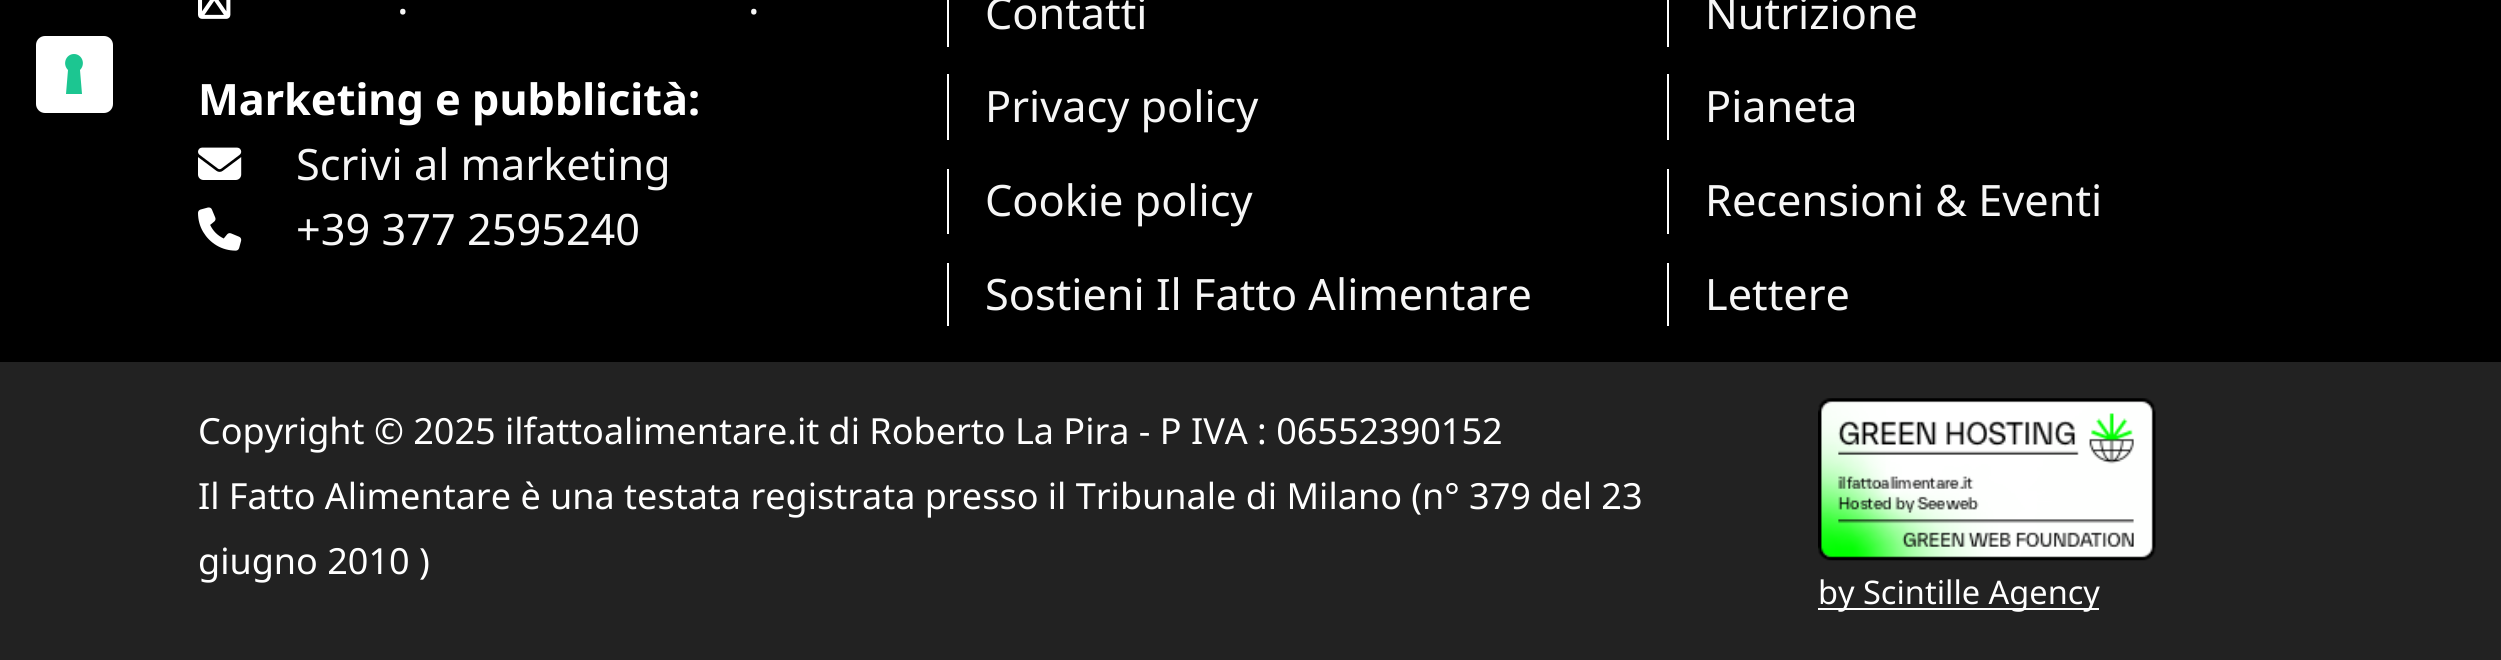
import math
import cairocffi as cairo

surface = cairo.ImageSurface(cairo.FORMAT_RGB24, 2501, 660)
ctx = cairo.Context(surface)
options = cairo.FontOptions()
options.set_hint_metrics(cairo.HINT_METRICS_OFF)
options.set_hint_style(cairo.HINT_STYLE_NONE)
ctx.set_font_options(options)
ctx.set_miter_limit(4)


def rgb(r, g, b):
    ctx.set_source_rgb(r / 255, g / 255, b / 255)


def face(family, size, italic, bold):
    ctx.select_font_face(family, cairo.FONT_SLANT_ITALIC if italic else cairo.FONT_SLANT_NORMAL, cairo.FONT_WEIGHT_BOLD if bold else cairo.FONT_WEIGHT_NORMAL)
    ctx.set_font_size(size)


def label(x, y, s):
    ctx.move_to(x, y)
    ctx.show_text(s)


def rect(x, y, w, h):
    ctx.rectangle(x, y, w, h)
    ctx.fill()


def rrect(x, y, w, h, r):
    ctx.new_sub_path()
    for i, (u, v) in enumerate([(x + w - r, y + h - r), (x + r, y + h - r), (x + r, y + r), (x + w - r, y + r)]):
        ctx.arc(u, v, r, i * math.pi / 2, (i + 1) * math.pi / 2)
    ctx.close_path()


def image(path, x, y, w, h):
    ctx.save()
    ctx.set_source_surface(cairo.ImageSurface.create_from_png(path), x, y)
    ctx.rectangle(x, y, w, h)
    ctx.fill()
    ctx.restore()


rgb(0, 0, 0)
ctx.paint()
rgb(255, 255, 255)
rrect(36, 36, 77, 77, 9)
ctx.fill()
rgb(28, 198, 145)
ctx.set_fill_rule(cairo.FILL_RULE_EVEN_ODD)
ctx.new_path()
ctx.move_to(74, 54)
ctx.curve_to(82, 54, 86, 64, 80, 70)
ctx.line_to(82, 94)
ctx.line_to(66, 94)
ctx.line_to(68, 70)
ctx.curve_to(62, 64, 66, 54, 74, 54)
ctx.close_path()
ctx.fill()
image('image0.png', 198, 0, 33, 19)
face('Noto Sans', 43.25, 0, 0)
rgb(246, 246, 246)
label(397, 14, '.')
label(748, 14, '.')
face('Noto Sans', 43.25, 0, 1)
rgb(255, 255, 255)
label(198, 115, 'Marketing e pubblicità:')
image('image1.png', 198, 147, 44, 33)
face('Noto Sans', 43.25, 0, 0)
rgb(246, 246, 246)
label(296, 180, 'Scrivi al marketing')
image('image2.png', 198, 207, 44, 44)
label(296, 245, '+39 377 2595240')
rgb(255, 255, 255)
rect(947, 0, 2, 47)
rgb(246, 246, 246)
label(985, 29, 'Contatti')
rgb(255, 255, 255)
rect(947, 74, 2, 66)
rgb(246, 246, 246)
label(985, 122, 'Privacy policy')
rgb(255, 255, 255)
rect(947, 169, 2, 65)
rgb(246, 246, 246)
label(985, 216, 'Cookie policy')
rgb(255, 255, 255)
rect(947, 263, 2, 63)
rgb(246, 246, 246)
label(985, 310, 'Sostieni Il Fatto Alimentare')
rgb(255, 255, 255)
rect(1667, 0, 2, 47)
rgb(246, 246, 246)
label(1705, 29, 'Nutrizione')
rgb(255, 255, 255)
rect(1667, 74, 2, 66)
rgb(246, 246, 246)
label(1705, 122, 'Pianeta')
rgb(255, 255, 255)
rect(1667, 169, 2, 65)
rgb(246, 246, 246)
label(1705, 216, 'Recensioni & Eventi')
rgb(255, 255, 255)
rect(1667, 263, 2, 63)
rgb(246, 246, 246)
label(1705, 310, 'Lettere')
rgb(34, 34, 34)
rect(0, 362, 2501, 298)
face('Noto Sans', 36, 0, 0)
rgb(255, 255, 255)
label(198, 444, 'Copyright © 2025 ilfattoalimentare.it di Roberto La Pira - P IVA : 06552390152')
label(198, 509, 'Il Fatto Alimentare è una testata registrata presso il Tribunale di Milano (n° 379 del 23')
label(198, 574, 'giugno 2010 )')
image('image3.png', 1818, 398, 338, 163)
rect(1818, 608, 281, 2)
face('Noto Sans', 32.5, 0, 0)
label(1818, 604, 'by Scintille Agency')
surface.write_to_png('render.png')
